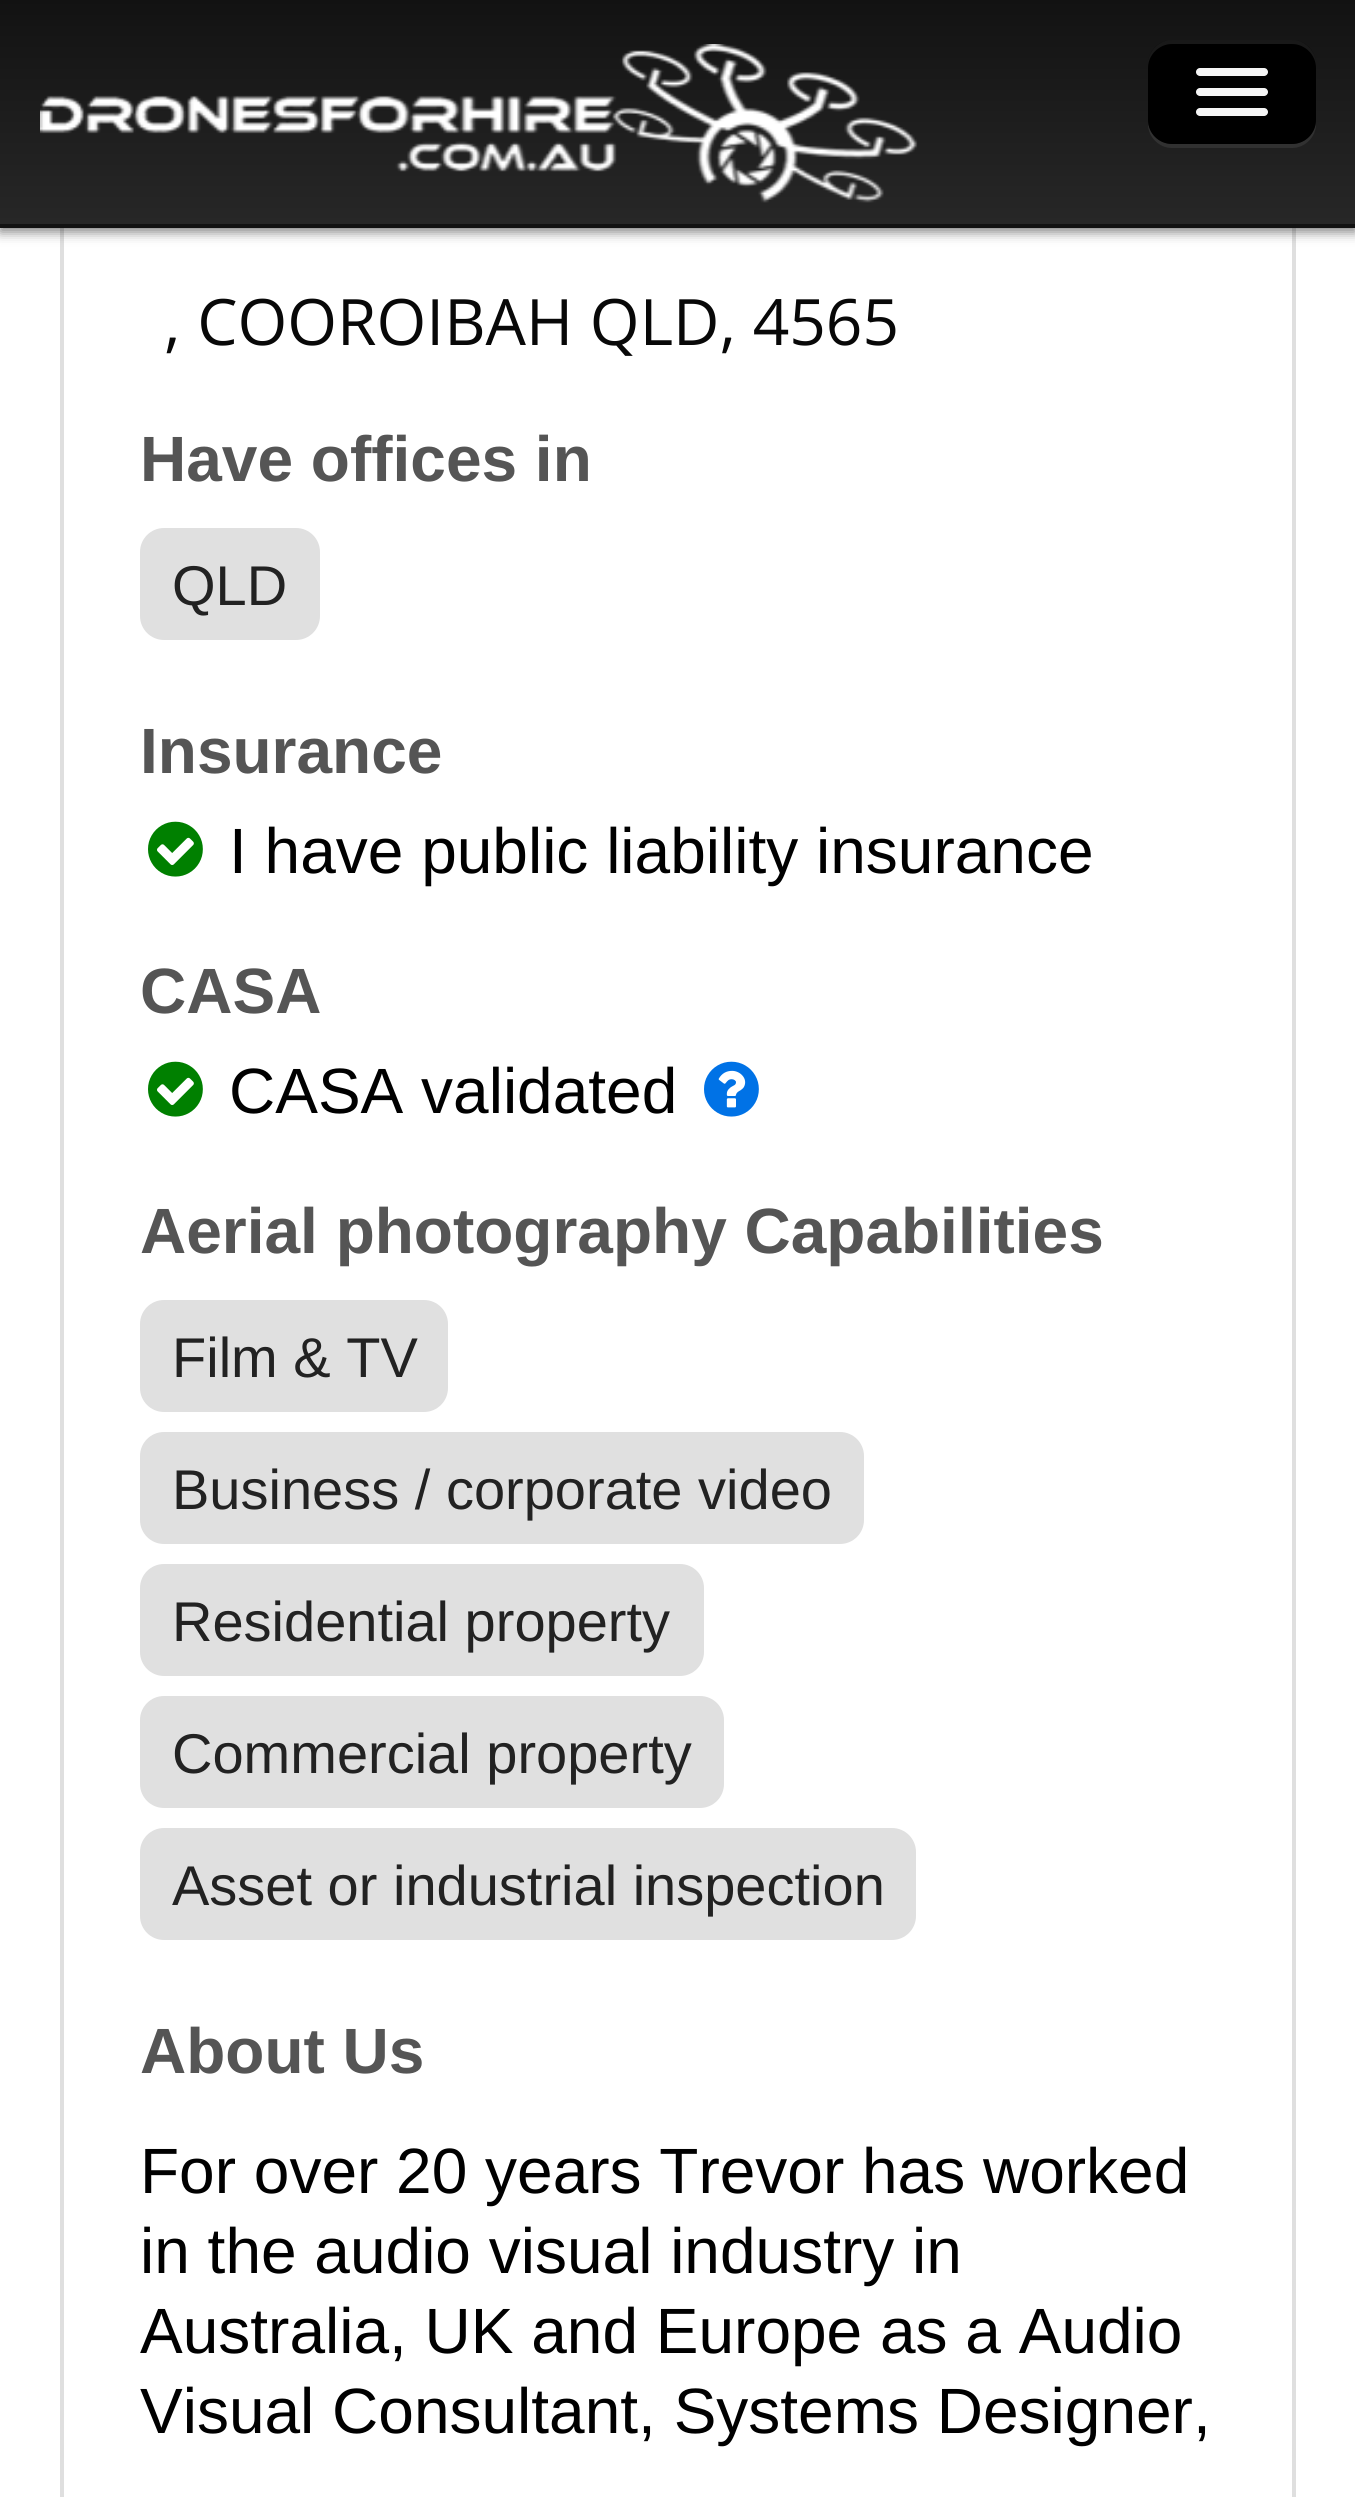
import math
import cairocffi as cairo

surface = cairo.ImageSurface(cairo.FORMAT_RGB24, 1355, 2497)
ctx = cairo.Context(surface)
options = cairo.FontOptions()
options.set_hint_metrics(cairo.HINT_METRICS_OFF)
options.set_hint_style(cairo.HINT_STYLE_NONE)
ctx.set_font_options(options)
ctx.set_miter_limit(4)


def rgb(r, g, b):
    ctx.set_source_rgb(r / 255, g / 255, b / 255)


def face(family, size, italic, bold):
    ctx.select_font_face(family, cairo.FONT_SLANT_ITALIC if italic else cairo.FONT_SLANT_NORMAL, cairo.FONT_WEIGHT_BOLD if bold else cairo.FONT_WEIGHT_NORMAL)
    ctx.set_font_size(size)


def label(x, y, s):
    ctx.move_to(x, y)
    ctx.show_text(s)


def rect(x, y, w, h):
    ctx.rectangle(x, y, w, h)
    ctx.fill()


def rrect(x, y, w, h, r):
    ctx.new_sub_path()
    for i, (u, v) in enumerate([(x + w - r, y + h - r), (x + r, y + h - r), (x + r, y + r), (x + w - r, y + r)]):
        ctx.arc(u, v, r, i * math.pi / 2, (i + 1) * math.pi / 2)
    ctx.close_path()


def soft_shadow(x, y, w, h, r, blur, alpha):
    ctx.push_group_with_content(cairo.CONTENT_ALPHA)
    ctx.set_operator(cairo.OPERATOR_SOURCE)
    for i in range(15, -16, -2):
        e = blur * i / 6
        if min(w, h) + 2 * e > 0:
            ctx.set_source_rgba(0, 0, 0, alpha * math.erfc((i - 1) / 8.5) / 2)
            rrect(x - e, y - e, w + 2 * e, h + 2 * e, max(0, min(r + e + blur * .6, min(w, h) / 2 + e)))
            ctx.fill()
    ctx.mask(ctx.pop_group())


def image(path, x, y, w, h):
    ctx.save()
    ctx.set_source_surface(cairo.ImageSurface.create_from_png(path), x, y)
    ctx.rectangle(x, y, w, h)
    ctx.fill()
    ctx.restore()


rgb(255, 255, 255)
ctx.paint()
rgb(223, 223, 223)
rect(1292, 228, 4, 2269)
rect(60, 228, 4, 2269)
rgb(0, 0, 0)
soft_shadow(0, 4, 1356, 228, 0, 6, 0.5)
rgb(18, 18, 18)
rect(0, 224, 1355, 4)
gradient = cairo.LinearGradient(0, 0, 0, 224)
gradient.add_color_stop_rgba(0, 0.071, 0.071, 0.071, 1)
gradient.add_color_stop_rgba(1, 0.153, 0.153, 0.153, 1)
ctx.set_source(gradient)
rect(0, 0, 1355, 224)
image('image0.png', 40, 44, 878, 159)
rgb(49, 49, 49)
ctx.new_path()
ctx.move_to(1148, 120)
ctx.line_to(1148, 124)
ctx.curve_to(1148, 137, 1159, 148, 1172, 148)
ctx.line_to(1292, 148)
ctx.curve_to(1305, 148, 1316, 137, 1316, 124)
ctx.line_to(1316, 120)
ctx.curve_to(1316, 133, 1305, 144, 1292, 144)
ctx.line_to(1172, 144)
ctx.curve_to(1159, 144, 1148, 133, 1148, 120)
ctx.close_path()
ctx.fill()
rgb(0, 0, 0)
rrect(1148, 40, 168, 104, 24)
ctx.fill()
ctx.set_source_rgba(1, 1, 1, 0.1)
ctx.new_path()
ctx.move_to(1172, 44)
ctx.line_to(1292, 44)
ctx.curve_to(1305, 44, 1316, 55, 1316, 68)
ctx.line_to(1316, 64)
ctx.curve_to(1316, 51, 1305, 40, 1292, 40)
ctx.line_to(1172, 40)
ctx.curve_to(1159, 40, 1148, 51, 1148, 64)
ctx.line_to(1148, 68)
ctx.curve_to(1148, 55, 1159, 44, 1172, 44)
ctx.close_path()
ctx.fill()
rgb(245, 245, 245)
rrect(1196, 68, 72, 8, 4)
ctx.fill()
rrect(1196, 88, 72, 8, 4)
ctx.fill()
rrect(1196, 108, 72, 8, 4)
ctx.fill()
face('Open Sans', 64, 0, 0)
rgb(8, 8, 8)
label(164, 345, ', COOROIBAH QLD, 4565')
face('Liberation Sans', 64, 0, 1)
rgb(85, 85, 85)
label(140, 481, 'Have offices in')
rgb(224, 224, 224)
rrect(140, 528, 180, 112, 24)
ctx.fill()
face('Liberation Sans', 56, 0, 0)
rgb(34, 34, 34)
label(172, 605, 'QLD')
face('Liberation Sans', 64, 0, 1)
rgb(85, 85, 85)
label(140, 773, 'Insurance')
image('image1.png', 148, 821, 55, 56)
face('Liberation Sans', 64, 0, 0)
rgb(0, 0, 0)
label(229, 873, 'I have public liability insurance')
face('Liberation Sans', 64, 0, 1)
rgb(85, 85, 85)
label(140, 1013, 'CASA')
image('image1.png', 148, 1061, 55, 56)
face('Liberation Sans', 64, 0, 0)
rgb(0, 0, 0)
label(229, 1113, 'CASA validated')
image('image2.png', 704, 1061, 55, 56)
face('Liberation Sans', 64, 0, 1)
rgb(85, 85, 85)
label(140, 1253, 'Aerial photography Capabilities')
rgb(224, 224, 224)
rrect(140, 1300, 308, 112, 24)
ctx.fill()
face('Liberation Sans', 56, 0, 0)
rgb(34, 34, 34)
label(172, 1377, 'Film & TV')
rgb(224, 224, 224)
rrect(140, 1432, 724, 112, 24)
ctx.fill()
rgb(34, 34, 34)
label(172, 1509, 'Business / corporate video')
rgb(224, 224, 224)
rrect(140, 1564, 564, 112, 24)
ctx.fill()
rgb(34, 34, 34)
label(172, 1641, 'Residential property')
rgb(224, 224, 224)
rrect(140, 1696, 584, 112, 24)
ctx.fill()
rgb(34, 34, 34)
label(172, 1773, 'Commercial property')
rgb(224, 224, 224)
rrect(140, 1828, 776, 112, 24)
ctx.fill()
rgb(34, 34, 34)
label(172, 1905, 'Asset or industrial inspection')
face('Liberation Sans', 64, 0, 1)
rgb(85, 85, 85)
label(140, 2073, 'About Us')
face('Liberation Sans', 64, 0, 0)
rgb(0, 0, 0)
label(140, 2193, 'For over 20 years Trevor has worked')
label(140, 2273, 'in the audio visual industry in')
label(140, 2353, 'Australia, UK and Europe as a Audio')
label(140, 2433, 'Visual Consultant, Systems Designer,')
surface.write_to_png('render.png')
